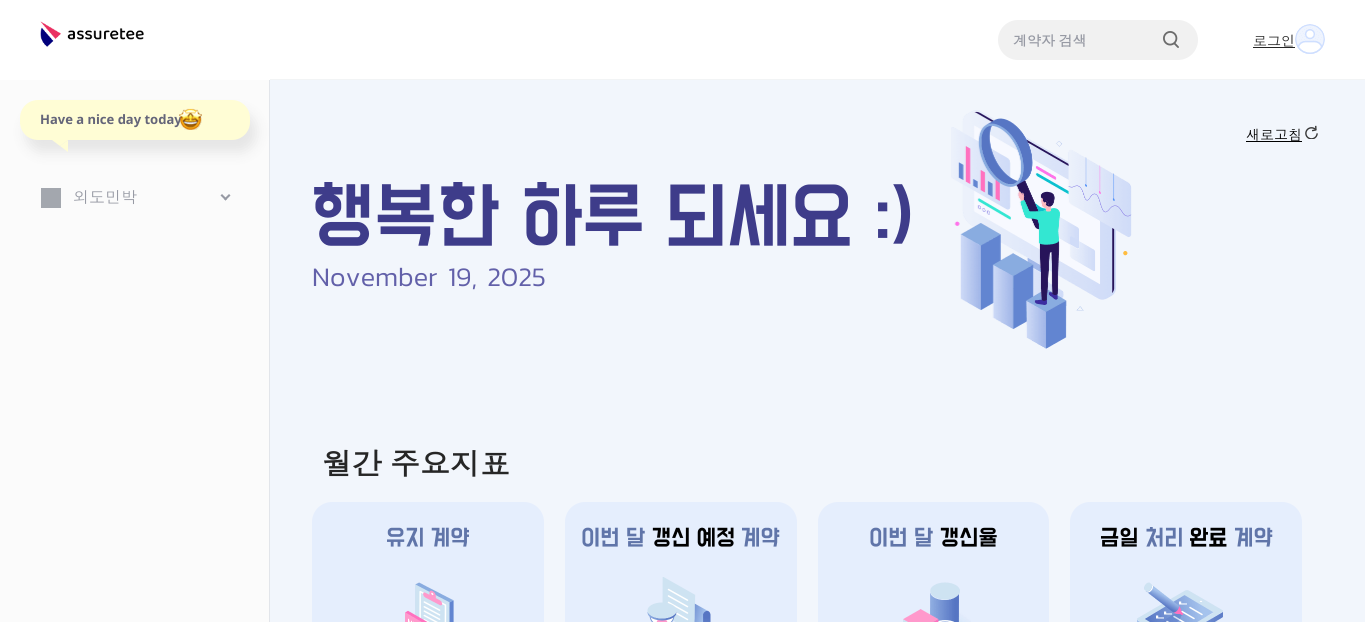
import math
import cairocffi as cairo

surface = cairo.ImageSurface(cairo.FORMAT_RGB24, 1365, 622)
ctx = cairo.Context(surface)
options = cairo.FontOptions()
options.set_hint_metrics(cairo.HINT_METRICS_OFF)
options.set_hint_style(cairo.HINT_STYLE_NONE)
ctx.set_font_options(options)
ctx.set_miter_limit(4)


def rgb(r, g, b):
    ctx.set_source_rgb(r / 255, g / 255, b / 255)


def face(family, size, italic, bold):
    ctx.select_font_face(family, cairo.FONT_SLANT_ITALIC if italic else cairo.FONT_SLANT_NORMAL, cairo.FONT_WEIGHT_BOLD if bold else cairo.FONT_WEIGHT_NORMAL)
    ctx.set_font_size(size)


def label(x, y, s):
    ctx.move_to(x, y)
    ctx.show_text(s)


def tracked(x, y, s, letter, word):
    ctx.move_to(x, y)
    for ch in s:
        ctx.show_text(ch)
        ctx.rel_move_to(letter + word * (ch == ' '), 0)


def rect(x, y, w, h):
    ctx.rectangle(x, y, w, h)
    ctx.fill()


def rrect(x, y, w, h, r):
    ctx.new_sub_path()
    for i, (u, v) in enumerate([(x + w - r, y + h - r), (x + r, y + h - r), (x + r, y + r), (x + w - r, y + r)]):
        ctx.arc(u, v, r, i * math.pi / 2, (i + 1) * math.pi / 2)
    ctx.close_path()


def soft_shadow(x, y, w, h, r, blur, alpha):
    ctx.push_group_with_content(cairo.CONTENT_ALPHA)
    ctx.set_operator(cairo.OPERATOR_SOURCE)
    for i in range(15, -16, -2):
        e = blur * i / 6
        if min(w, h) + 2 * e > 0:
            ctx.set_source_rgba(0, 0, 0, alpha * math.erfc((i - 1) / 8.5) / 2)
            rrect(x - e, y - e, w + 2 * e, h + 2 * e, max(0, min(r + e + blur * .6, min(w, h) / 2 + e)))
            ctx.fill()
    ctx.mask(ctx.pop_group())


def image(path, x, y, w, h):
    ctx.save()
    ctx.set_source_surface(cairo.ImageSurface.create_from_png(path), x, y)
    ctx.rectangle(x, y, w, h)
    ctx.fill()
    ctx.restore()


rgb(255, 255, 255)
ctx.paint()
rgb(242, 244, 245)
rect(270, 79, 1095, 1)
image('image0.png', 40, 21, 104, 26)
rgb(241, 241, 241)
rrect(998, 20, 200, 40, 20)
ctx.fill()
face('Dotum', 14, 0, 1)
rgb(151, 154, 164)
tracked(1013, 46, '계약자 검색', 0, -1)
image('image1.png', 1163, 31, 16, 17)
face('Dotum', 14, 0, 0)
rgb(38, 38, 38)
label(1253, 46, '로그인')
rect(1253, 47, 42, 1)
image('image2.png', 1295, 24, 30, 30)
rgb(251, 251, 251)
rect(0, 80, 269, 542)
rgb(226, 229, 234)
rect(269, 80, 1, 542)
rgb(242, 246, 252)
rect(270, 80, 1095, 542)
rgb(0, 0, 0)
soft_shadow(26, 112, 230, 40, 18, 7, 0.09)
rgb(255, 253, 213)
rrect(20, 100, 230, 40, 18)
ctx.fill()
face('Noto Sans', 13, 0, 1)
rgb(100, 101, 121)
label(40, 124, 'Have a nice day today')
image('image3.png', 179, 108, 23, 22)
rgb(255, 253, 213)
ctx.new_path()
ctx.move_to(52, 140)
ctx.line_to(68, 140)
ctx.line_to(60, 146)
ctx.close_path()
ctx.fill()
ctx.new_path()
ctx.move_to(68, 140)
ctx.line_to(68, 152)
ctx.line_to(60, 146)
ctx.close_path()
ctx.fill()
rgb(163, 167, 174)
rect(41, 188, 20, 20)
face('Dotum', 16, 0, 0)
rgb(151, 154, 164)
label(73, 203, '외도민박')
ctx.new_path()
ctx.move_to(230.5, 195.5)
ctx.line_to(225.5, 200.5)
ctx.line_to(224, 199)
ctx.line_to(229, 194)
ctx.close_path()
ctx.fill()
ctx.new_path()
ctx.move_to(227, 199)
ctx.line_to(225.5, 200.5)
ctx.line_to(220.5, 195.5)
ctx.line_to(222, 194)
ctx.close_path()
ctx.fill()
face('Dotum', 14, 0, 0)
rgb(0, 0, 0)
label(1246, 140, '새로고침')
rect(1246, 141, 56, 1)
image('image4.png', 1305, 125, 13, 14)
face('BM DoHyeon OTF', 65, 0, 0)
rgb(62, 60, 138)
label(312, 234, '행복한 하루 되세요 :)')
image('image5.png', 951, 110, 181, 239)
face('Kanit Light', 27, 0, 0)
rgb(98, 96, 169)
label(312, 286, 'November 19, 2025')
face('Dotum', 30, 0, 1)
rgb(38, 38, 38)
tracked(322, 475, '월간 주요지표', 0, -2)
rgb(229, 238, 253)
rrect(312, 502, 232, 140, 20)
ctx.fill()
face('BM DoHyeon OTF', 20, 0, 0)
rgb(96, 117, 169)
label(386, 543, '유지 계약')
image('image6.png', 405, 582, 49, 40)
rgb(229, 238, 253)
rrect(565, 502, 232, 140, 20)
ctx.fill()
rgb(96, 117, 169)
label(581, 543, '이번 달')
rgb(0, 0, 0)
label(652, 543, '갱신 예정')
rgb(96, 117, 169)
label(741, 543, '계약')
image('image7.png', 647, 577, 64, 45)
rgb(229, 238, 253)
rrect(818, 502, 231, 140, 20)
ctx.fill()
rgb(96, 117, 169)
label(869, 543, '이번 달')
rgb(0, 0, 0)
label(940, 543, '갱신율')
image('image8.png', 903, 582, 68, 40)
rgb(229, 238, 253)
rrect(1070, 502, 232, 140, 20)
ctx.fill()
rgb(0, 0, 0)
label(1100, 543, '금일')
rgb(96, 117, 169)
label(1145, 543, '처리')
rgb(0, 0, 0)
label(1189, 543, '완료')
rgb(96, 117, 169)
label(1234, 543, '계약')
image('image9.png', 1137, 582, 86, 40)
surface.write_to_png('render.png')
